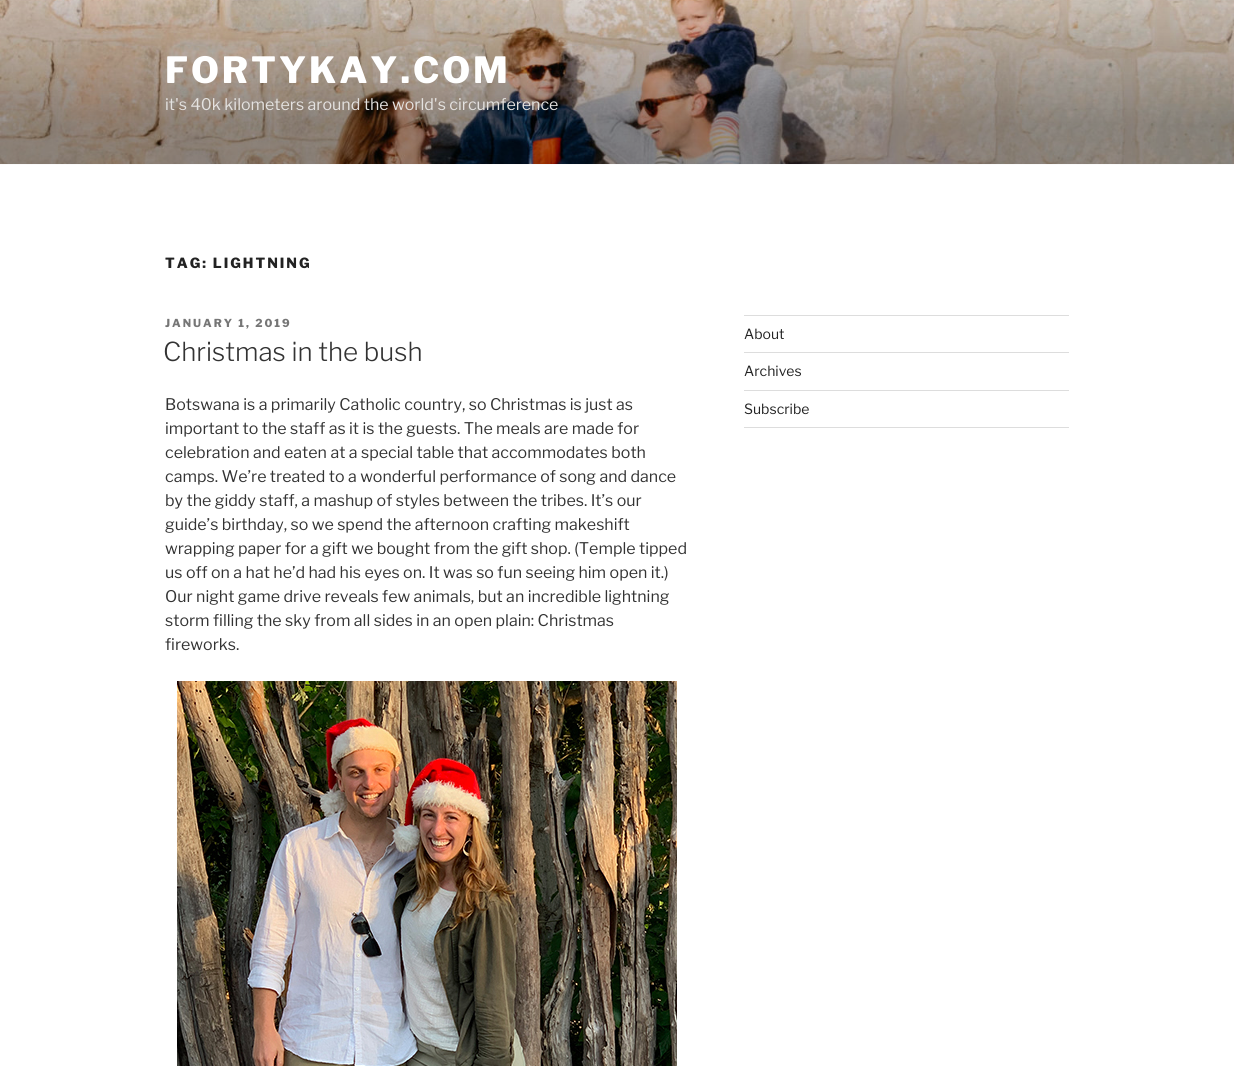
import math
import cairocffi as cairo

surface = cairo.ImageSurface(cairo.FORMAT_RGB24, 1234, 1066)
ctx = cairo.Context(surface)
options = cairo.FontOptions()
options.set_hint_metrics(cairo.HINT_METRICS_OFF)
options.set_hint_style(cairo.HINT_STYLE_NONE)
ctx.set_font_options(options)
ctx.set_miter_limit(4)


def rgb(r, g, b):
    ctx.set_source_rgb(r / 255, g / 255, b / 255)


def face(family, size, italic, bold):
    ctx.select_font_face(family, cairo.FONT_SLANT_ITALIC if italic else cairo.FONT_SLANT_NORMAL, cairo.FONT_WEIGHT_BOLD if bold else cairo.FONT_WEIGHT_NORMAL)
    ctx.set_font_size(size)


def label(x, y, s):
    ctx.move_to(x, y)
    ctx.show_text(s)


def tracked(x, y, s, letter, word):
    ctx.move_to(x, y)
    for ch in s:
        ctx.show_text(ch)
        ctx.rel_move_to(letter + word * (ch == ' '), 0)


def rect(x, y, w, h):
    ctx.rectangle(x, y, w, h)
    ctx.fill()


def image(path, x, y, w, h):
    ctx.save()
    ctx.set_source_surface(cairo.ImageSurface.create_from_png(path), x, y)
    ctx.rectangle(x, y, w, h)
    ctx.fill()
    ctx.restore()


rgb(255, 255, 255)
ctx.paint()
rgb(250, 250, 250)
rect(0, 164, 1234, 1)
image('image0.png', 0, 0, 1234, 164)
face('Libre Franklin Thin', 36, 0, 0)
rgb(255, 255, 255)
tracked(165, 83, 'FORTYKAY.COM', 2.9, 0)
face('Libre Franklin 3 Thin', 16, 0, 0)
rgb(228, 226, 224)
label(165, 110, 'it\'s 40k kilometers around the world\'s circumference')
face('Libre Franklin Thin', 14, 0, 0)
rgb(34, 34, 34)
tracked(165, 268, 'TAG: LIGHTNING', 2, 0)
face('Libre Franklin Thin', 11, 0, 0)
rgb(118, 118, 118)
tracked(165, 327, 'JANUARY 1, 2019', 2, 0)
face('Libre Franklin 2 Thin', 26, 0, 0)
rgb(51, 51, 51)
label(163, 361, 'Christmas in the bush')
face('Libre Franklin 3 Thin', 16, 0, 0)
label(165, 410, 'Botswana is a primarily Catholic country, so Christmas is just as')
label(165, 434, 'important to the staff as it is the guests. The meals are made for')
label(165, 458, 'celebration and eaten at a special table that accommodates both')
label(165, 482, 'camps. We’re treated to a wonderful performance of song and dance')
label(165, 506, 'by the giddy staff, a mashup of styles between the tribes. It’s our')
label(165, 530, 'guide’s birthday, so we spend the afternoon crafting makeshift')
label(165, 554, 'wrapping paper for a gift we bought from the gift shop. (Temple tipped')
label(165, 578, 'us off on a hat he’d had his eyes on. It was so fun seeing him open it.)')
label(165, 602, 'Our night game drive reveals few animals, but an incredible lightning')
label(165, 626, 'storm filling the sky from all sides in an open plain: Christmas')
label(165, 650, 'fireworks.')
image('image1.png', 177, 681, 500, 385)
rgb(221, 221, 221)
rect(744, 315, 325, 1)
rect(744, 352, 325, 1)
face('Libre Franklin 3 Thin', 14, 0, 0)
rgb(34, 34, 34)
label(744, 339, 'About')
rgb(221, 221, 221)
rect(744, 390, 325, 1)
rgb(34, 34, 34)
label(744, 376, 'Archives')
rgb(221, 221, 221)
rect(744, 427, 325, 1)
rgb(34, 34, 34)
label(744, 414, 'Subscribe')
surface.write_to_png('render.png')
